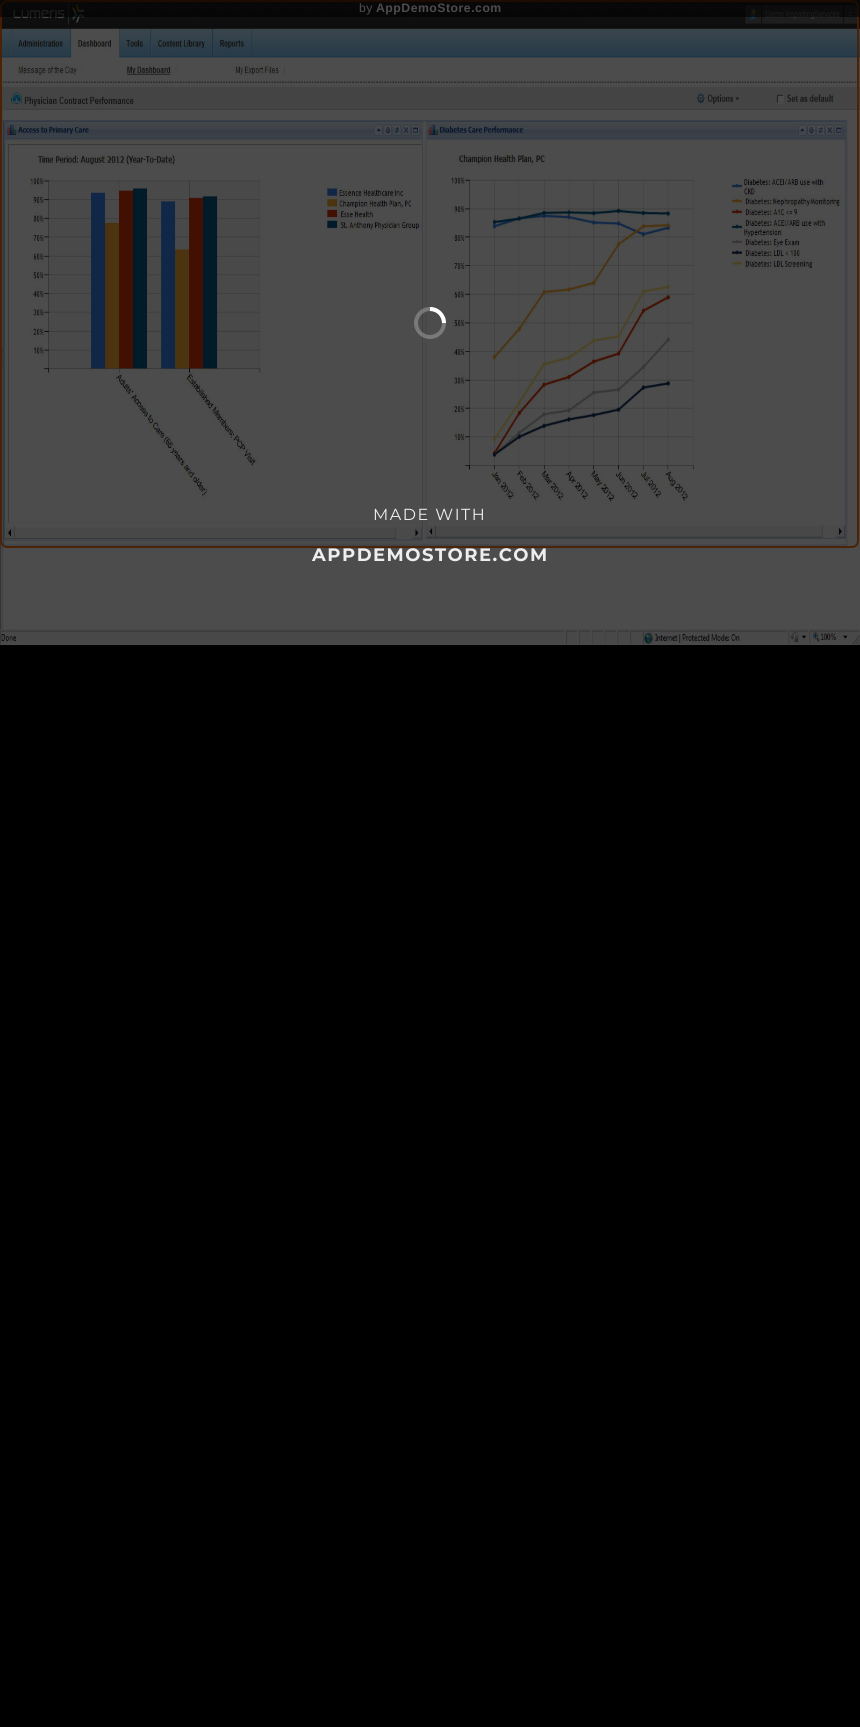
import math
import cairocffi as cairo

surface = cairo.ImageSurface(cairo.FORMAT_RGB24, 860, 1727)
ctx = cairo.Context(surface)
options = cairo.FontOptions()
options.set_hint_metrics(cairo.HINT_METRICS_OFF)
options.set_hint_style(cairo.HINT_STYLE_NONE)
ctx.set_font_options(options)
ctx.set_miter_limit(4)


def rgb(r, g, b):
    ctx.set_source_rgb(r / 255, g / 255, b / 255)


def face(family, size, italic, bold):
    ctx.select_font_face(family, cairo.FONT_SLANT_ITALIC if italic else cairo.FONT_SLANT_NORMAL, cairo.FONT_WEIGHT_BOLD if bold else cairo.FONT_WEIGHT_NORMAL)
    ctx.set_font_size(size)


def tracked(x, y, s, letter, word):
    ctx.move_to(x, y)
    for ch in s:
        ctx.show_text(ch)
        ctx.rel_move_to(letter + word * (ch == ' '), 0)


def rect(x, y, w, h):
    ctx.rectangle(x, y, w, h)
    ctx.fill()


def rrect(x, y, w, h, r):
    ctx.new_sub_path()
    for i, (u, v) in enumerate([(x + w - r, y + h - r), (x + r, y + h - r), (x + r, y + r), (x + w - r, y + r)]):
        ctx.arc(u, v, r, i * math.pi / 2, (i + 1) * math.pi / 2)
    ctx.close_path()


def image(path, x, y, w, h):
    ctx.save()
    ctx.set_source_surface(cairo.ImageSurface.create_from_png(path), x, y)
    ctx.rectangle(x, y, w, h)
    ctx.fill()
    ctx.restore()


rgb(0, 0, 0)
ctx.paint()
image('image0.png', 0, 0, 860, 645)
rrect(1, 1, 857, 546, 6)
ctx.set_source_rgba(0.302, 0.122, 0, 0.9)
ctx.stroke()
ctx.set_source_rgba(0, 0, 0, 0.6)
rect(0, 0, 860, 17)
face('Liberation Sans', 12.25, 0, 0)
rgb(77, 77, 77)
tracked(359, 12, 'by', 0.5, 0)
face('Liberation Sans', 12.25, 0, 1)
tracked(376, 12, 'AppDemoStore.com', 0.5, 0)
image('image1.png', 414, 307, 32, 32)
face('Montserrat', 16, 0, 0)
rgb(238, 238, 238)
tracked(373, 520, 'MADE WITH', 1.5, 0)
face('Montserrat', 18, 0, 1)
tracked(312, 561, 'APPDEMOSTORE.COM', 1.5, 0)
surface.write_to_png('render.png')
